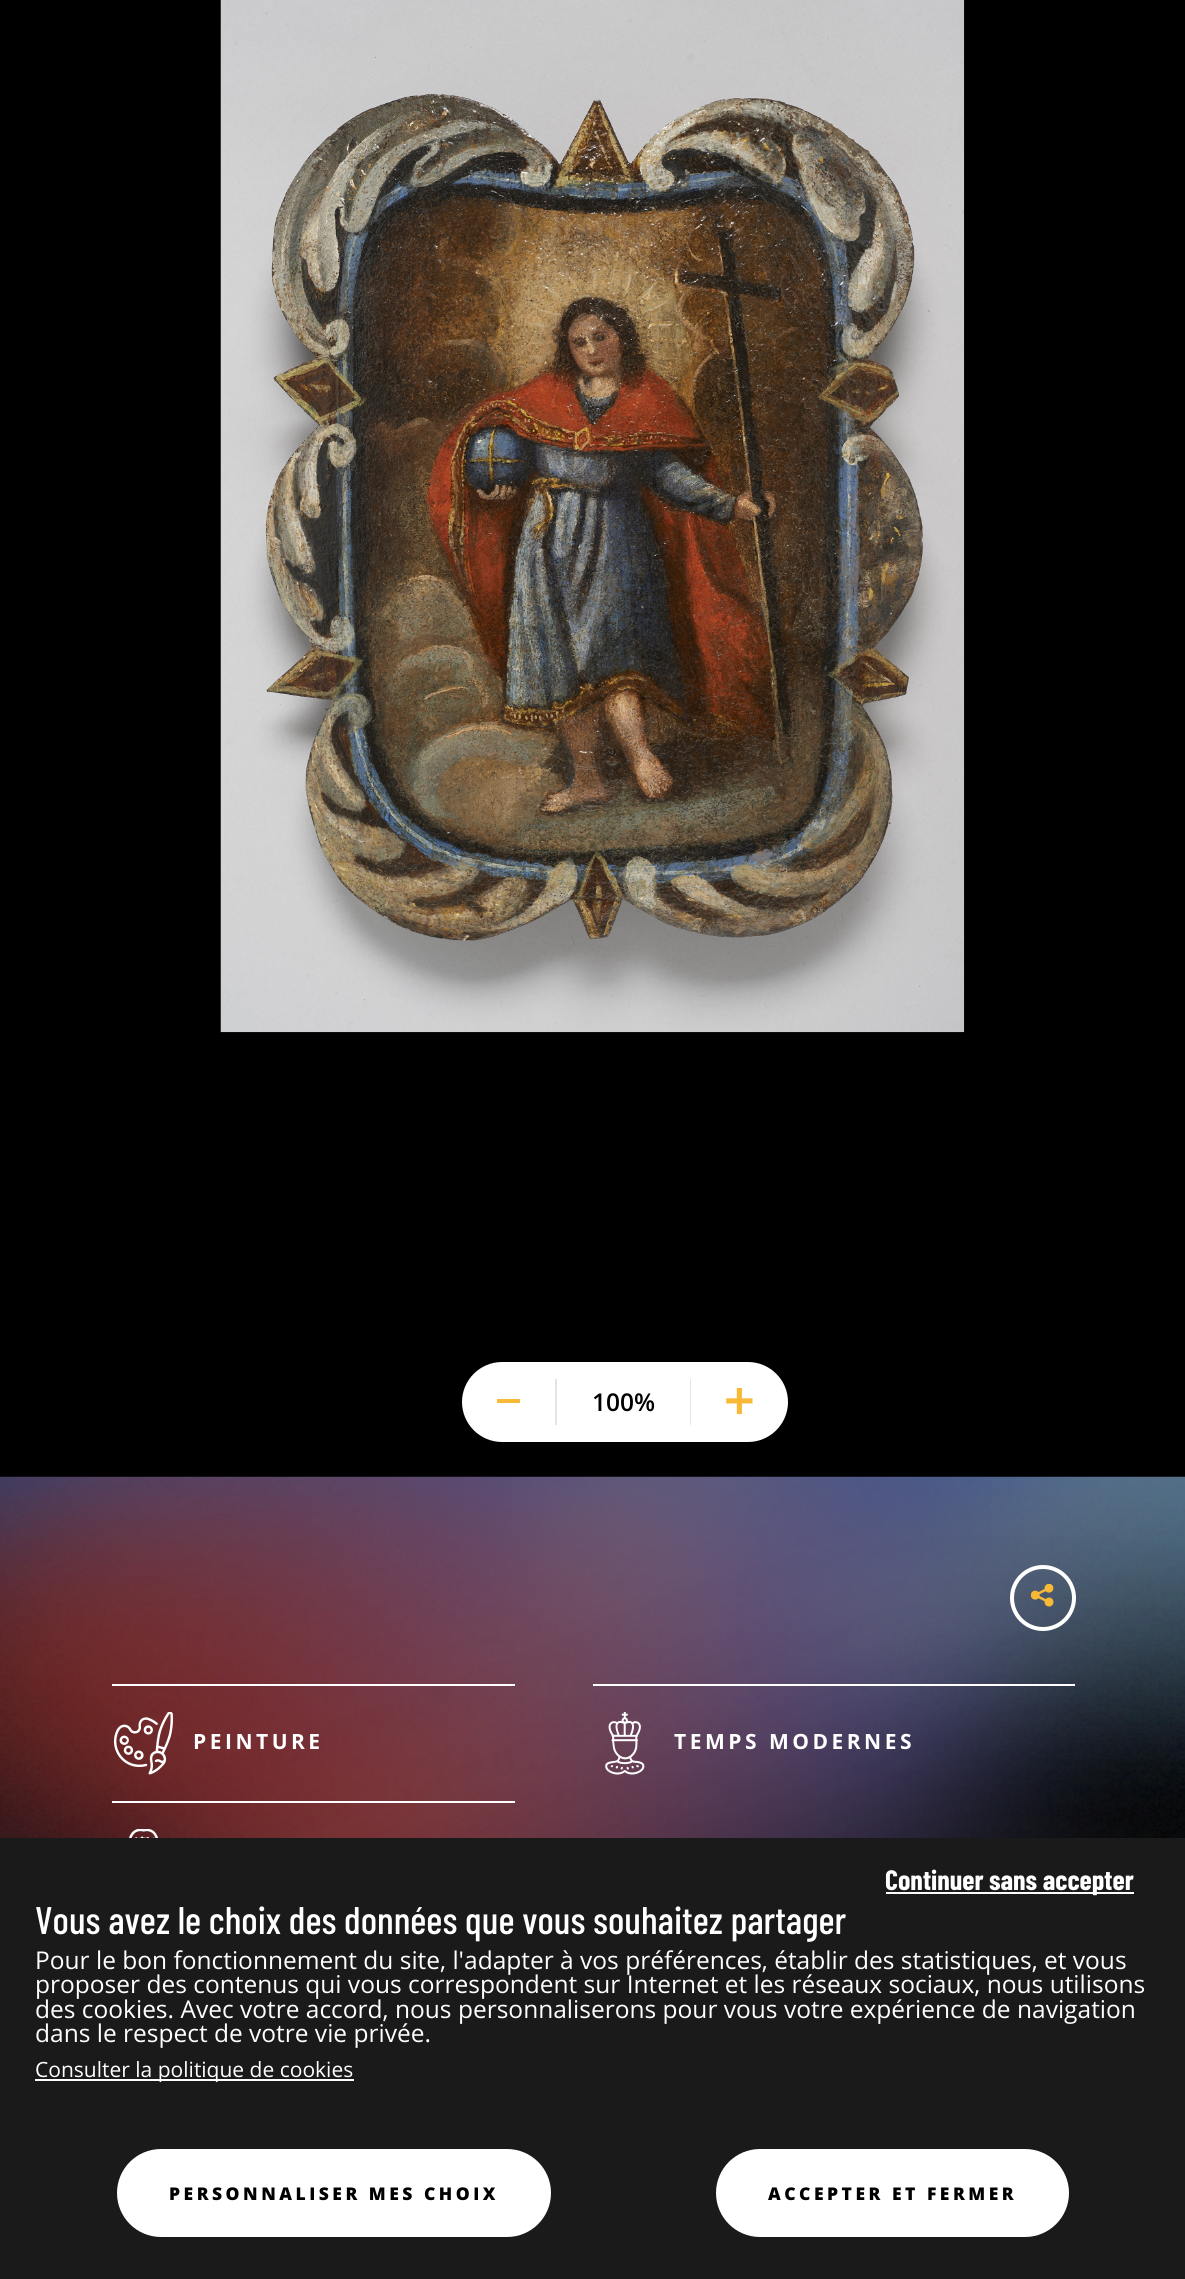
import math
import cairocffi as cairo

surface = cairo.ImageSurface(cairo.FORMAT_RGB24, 1185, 2279)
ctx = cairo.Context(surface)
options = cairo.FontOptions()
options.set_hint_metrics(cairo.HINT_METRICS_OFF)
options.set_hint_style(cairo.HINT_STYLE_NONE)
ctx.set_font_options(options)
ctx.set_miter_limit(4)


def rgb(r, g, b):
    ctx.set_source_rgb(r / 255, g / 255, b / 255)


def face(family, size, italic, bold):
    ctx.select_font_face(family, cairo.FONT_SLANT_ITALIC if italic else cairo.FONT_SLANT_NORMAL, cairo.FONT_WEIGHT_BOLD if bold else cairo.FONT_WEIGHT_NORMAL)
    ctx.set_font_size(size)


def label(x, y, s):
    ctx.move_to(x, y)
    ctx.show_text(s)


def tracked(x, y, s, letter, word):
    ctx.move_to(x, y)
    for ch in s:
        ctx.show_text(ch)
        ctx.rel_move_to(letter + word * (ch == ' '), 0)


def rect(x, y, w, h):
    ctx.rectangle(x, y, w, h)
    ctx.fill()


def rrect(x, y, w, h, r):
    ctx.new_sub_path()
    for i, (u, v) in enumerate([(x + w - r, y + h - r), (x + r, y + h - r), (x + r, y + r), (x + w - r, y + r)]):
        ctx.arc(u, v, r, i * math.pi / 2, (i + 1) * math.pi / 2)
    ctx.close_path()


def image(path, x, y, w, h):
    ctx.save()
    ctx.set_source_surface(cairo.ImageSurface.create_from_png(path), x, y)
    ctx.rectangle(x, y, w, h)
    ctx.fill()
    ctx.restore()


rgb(0, 0, 0)
ctx.paint()
image('image0.png', 220, 0, 745, 1033)
rgb(255, 255, 255)
ctx.new_path()
ctx.move_to(502, 1362)
ctx.line_to(555, 1362)
ctx.line_to(555, 1442)
ctx.line_to(502, 1442)
ctx.curve_to(480, 1442, 462, 1424, 462, 1402)
ctx.curve_to(462, 1380, 480, 1362, 502, 1362)
ctx.close_path()
ctx.fill()
rgb(248, 185, 54)
rect(497, 1399, 23, 4)
rgb(255, 255, 255)
rect(555, 1362, 136, 80)
rgb(229, 229, 229)
rect(555, 1379, 2, 46)
face('Open Sans SemiBold', 24.5, 0, 0)
rgb(0, 0, 0)
label(592, 1411, '100%')
rgb(229, 229, 229)
rect(690, 1379, 1, 46)
rgb(255, 255, 255)
ctx.new_path()
ctx.move_to(691, 1362)
ctx.line_to(748, 1362)
ctx.curve_to(770, 1362, 788, 1380, 788, 1402)
ctx.curve_to(788, 1424, 770, 1442, 748, 1442)
ctx.line_to(691, 1442)
ctx.close_path()
ctx.fill()
image('image1.png', 726, 1388, 27, 26)
image('image3.png', 0, 1477, 1185, 361)
image('image2.png', 0, 1476, 1185, 362)
ctx.arc(1043, 1598, 31, 0, 2 * math.pi)
ctx.set_line_width(4)
ctx.stroke()
image('image4.png', 1031, 1584, 23, 23)
rect(112, 1684, 403, 2)
image('image5.png', 113, 1712, 60, 63)
face('Open Sans', 21, 0, 1)
tracked(193, 1749, 'PEINTURE', 3.5, 0)
rect(593, 1684, 482, 2)
image('image6.png', 605, 1712, 40, 63)
tracked(674, 1749, 'TEMPS MODERNES', 3.5, 0)
rect(112, 1801, 403, 2)
image('image7.png', 129, 1829, 29, 9)
rgb(26, 26, 26)
rect(0, 1838, 1185, 441)
rgb(255, 255, 255)
rect(886, 1892, 248, 2)
face('Barlow Condensed', 28, 0, 1)
label(885, 1890, 'Continuer sans accepter')
face('Barlow Condensed Medium', 38.5, 0, 0)
label(35, 1934, 'Vous avez le choix des données que vous souhaitez partager')
face('Open Sans', 24.5, 0, 0)
label(35, 1969, 'Pour le bon fonctionnement du site, l\'adapter à vos préférences, établir des statistiques, et vous')
label(35, 1993, 'proposer des contenus qui vous correspondent sur Internet et les réseaux sociaux, nous utilisons')
label(35, 2018, 'des cookies. Avec votre accord, nous personnaliserons pour vous votre expérience de navigation')
label(35, 2042, 'dans le respect de votre vie privée.')
rect(35, 2079, 319, 2)
face('Open Sans', 21, 0, 0)
label(35, 2077, 'Consulter la politique de cookies')
rrect(117, 2149, 434, 88, 44)
ctx.fill()
face('Open Sans ExtraBold', 17.5, 0, 0)
rgb(0, 0, 0)
tracked(169, 2200, 'PERSONNALISER MES CHOIX', 3.5, 0)
rgb(255, 255, 255)
rrect(716, 2149, 353, 88, 44)
ctx.fill()
rgb(0, 0, 0)
tracked(768, 2200, 'ACCEPTER ET FERMER', 3.5, 0)
surface.write_to_png('render.png')
